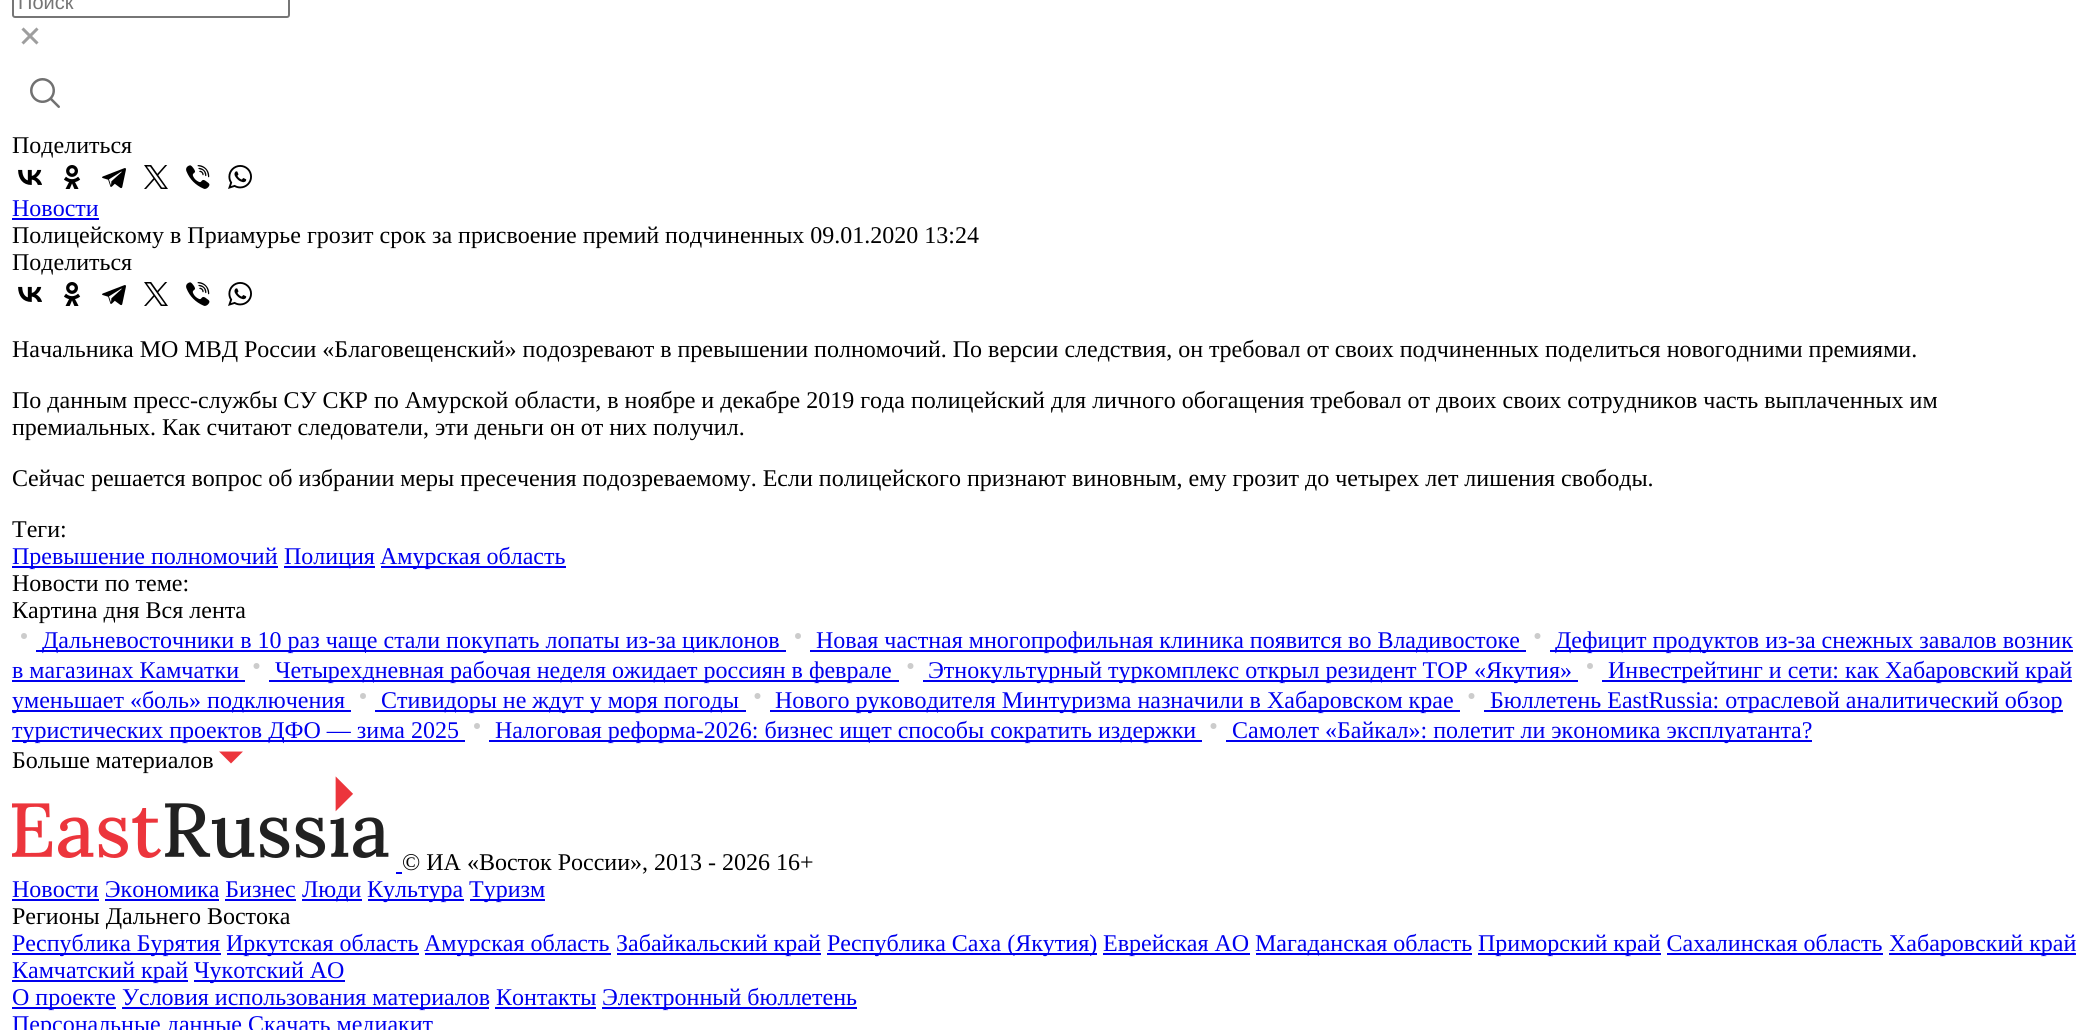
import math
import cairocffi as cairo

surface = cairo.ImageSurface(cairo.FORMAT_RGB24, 2091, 1030)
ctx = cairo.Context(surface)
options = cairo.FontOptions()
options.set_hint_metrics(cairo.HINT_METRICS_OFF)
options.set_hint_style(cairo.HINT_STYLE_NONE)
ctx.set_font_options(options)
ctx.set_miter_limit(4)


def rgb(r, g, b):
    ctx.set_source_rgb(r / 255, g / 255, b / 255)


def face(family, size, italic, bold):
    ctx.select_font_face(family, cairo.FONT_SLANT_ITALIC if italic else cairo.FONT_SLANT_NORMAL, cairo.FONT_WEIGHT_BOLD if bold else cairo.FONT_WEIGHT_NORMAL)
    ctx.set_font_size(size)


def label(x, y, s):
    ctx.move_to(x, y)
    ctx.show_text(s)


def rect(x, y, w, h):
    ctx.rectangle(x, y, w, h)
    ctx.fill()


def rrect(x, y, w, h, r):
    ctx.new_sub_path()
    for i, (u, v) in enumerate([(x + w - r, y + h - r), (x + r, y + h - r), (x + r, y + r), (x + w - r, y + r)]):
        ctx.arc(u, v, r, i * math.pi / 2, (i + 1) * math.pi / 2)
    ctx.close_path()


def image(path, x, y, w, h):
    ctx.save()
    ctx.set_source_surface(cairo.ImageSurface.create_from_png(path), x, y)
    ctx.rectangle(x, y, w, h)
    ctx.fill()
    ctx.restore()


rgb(255, 255, 255)
ctx.paint()
rrect(13, -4, 276, 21, 2)
rgb(118, 118, 118)
ctx.stroke()
face('Liberation Sans', 20, 0, 0)
rgb(117, 117, 117)
label(18, 9, 'Поиск')
ctx.new_path()
ctx.move_to(22.5, 28.5)
ctx.line_to(30, 36)
ctx.move_to(37.5, 43.5)
ctx.line_to(30, 36)
ctx.move_to(30, 36)
ctx.line_to(37.5, 28.5)
ctx.move_to(30, 36)
ctx.line_to(22.5, 43.5)
rgb(158, 158, 158)
ctx.set_line_width(3)
ctx.stroke()
image('image0.png', 30, 78, 30, 30)
face('Liberation Serif', 24, 0, 0)
rgb(0, 0, 0)
label(12, 153, 'Поделиться')
image('image1.png', 18, 169, 24, 16)
image('image2.png', 64, 165, 17, 24)
image('image3.png', 102, 168, 24, 21)
image('image4.png', 144, 165, 24, 24)
image('image5.png', 186, 165, 24, 24)
image('image6.png', 228, 165, 24, 24)
rgb(0, 0, 238)
label(12, 216, 'Новости')
rect(12, 218, 87, 2)
rgb(0, 0, 0)
label(12, 243, 'Полицейскому в Приамурье грозит срок за присвоение премий подчиненных 09.01.2020 13:24')
label(12, 270, 'Поделиться')
image('image1.png', 18, 286, 24, 16)
image('image2.png', 64, 282, 17, 24)
image('image3.png', 102, 285, 24, 21)
image('image4.png', 144, 282, 24, 24)
image('image5.png', 186, 282, 24, 24)
image('image6.png', 228, 282, 24, 24)
label(12, 357, 'Начальника МО МВД России «Благовещенский» подозревают в превышении полномочий. По версии следствия, он требовал от своих подчиненных поделиться новогодними премиями.')
label(12, 408, 'По данным пресс-службы СУ СКР по Амурской области, в ноябре и декабре 2019 года полицейский для личного обогащения требовал от двоих своих сотрудников часть выплаченных им')
label(12, 435, 'премиальных. Как считают следователи, эти деньги он от них получил.')
label(12, 486, 'Сейчас решается вопрос об избрании меры пресечения подозреваемому. Если полицейского признают виновным, ему грозит до четырех лет лишения свободы.')
label(12, 537, 'Теги:')
rgb(0, 0, 238)
rect(12, 566, 266, 2)
label(12, 564, 'Превышение полномочий')
rect(284, 566, 91, 2)
label(284, 564, 'Полиция')
rect(381, 566, 185, 2)
label(380, 564, 'Амурская область')
rgb(0, 0, 0)
label(12, 591, 'Новости по теме:')
label(12, 618, 'Картина дня Вся лента')
rgb(0, 0, 238)
rect(36, 650, 750, 2)
label(42, 648, 'Дальневосточники в 10 раз чаще стали покупать лопаты из-за циклонов')
rgb(204, 204, 204)
ctx.new_path()
ctx.arc(24, 636, 3, 0, 2 * math.pi)
ctx.fill()
rgb(0, 0, 238)
rect(810, 650, 716, 2)
label(816, 648, 'Новая частная многопрофильная клиника появится во Владивостоке')
rgb(204, 204, 204)
ctx.new_path()
ctx.arc(798, 636, 3, 0, 2 * math.pi)
ctx.fill()
rgb(0, 0, 238)
rect(1550, 650, 523, 2)
label(1555, 648, 'Дефицит продуктов из-за снежных завалов возник')
rgb(204, 204, 204)
ctx.new_path()
ctx.arc(1537.5, 636, 3, 0, 2 * math.pi)
ctx.fill()
rgb(0, 0, 238)
label(12, 678, 'в магазинах Камчатки')
rect(12, 680, 233, 2)
rect(269, 680, 630, 2)
label(275, 678, 'Четырехдневная рабочая неделя ожидает россиян в феврале')
rgb(204, 204, 204)
ctx.new_path()
ctx.arc(256.5, 666, 3, 0, 2 * math.pi)
ctx.fill()
rgb(0, 0, 238)
rect(923, 680, 655, 2)
label(928, 678, 'Этнокультурный туркомплекс открыл резидент ТОР «Якутия»')
rgb(204, 204, 204)
ctx.new_path()
ctx.arc(910.5, 666, 3, 0, 2 * math.pi)
ctx.fill()
rgb(0, 0, 238)
rect(1602, 680, 470, 2)
label(1608, 678, 'Инвестрейтинг и сети: как Хабаровский край')
rgb(204, 204, 204)
ctx.new_path()
ctx.arc(1590, 666, 3, 0, 2 * math.pi)
ctx.fill()
rgb(0, 0, 238)
rect(12, 710, 339, 2)
label(12, 708, 'уменьшает «боль» подключения')
rect(375, 710, 371, 2)
label(381, 708, 'Стивидоры не ждут у моря погоды')
rgb(204, 204, 204)
ctx.new_path()
ctx.arc(363, 696, 3, 0, 2 * math.pi)
ctx.fill()
rgb(0, 0, 238)
rect(770, 710, 690, 2)
label(775, 708, 'Нового руководителя Минтуризма назначили в Хабаровском крае')
rgb(204, 204, 204)
ctx.new_path()
ctx.arc(757.5, 696, 3, 0, 2 * math.pi)
ctx.fill()
rgb(0, 0, 238)
rect(1484, 710, 579, 2)
label(1490, 708, 'Бюллетень EastRussia: отраслевой аналитический обзор')
rgb(204, 204, 204)
ctx.new_path()
ctx.arc(1471.5, 696, 3, 0, 2 * math.pi)
ctx.fill()
rgb(0, 0, 238)
rect(12, 740, 453, 2)
label(12, 738, 'туристических проектов ДФО — зима 2025')
rect(489, 740, 713, 2)
label(495, 738, 'Налоговая реформа-2026: бизнес ищет способы сократить издержки')
rgb(204, 204, 204)
ctx.new_path()
ctx.arc(477, 726, 3, 0, 2 * math.pi)
ctx.fill()
rgb(0, 0, 238)
rect(1226, 740, 586, 2)
label(1232, 738, 'Самолет «Байкал»: полетит ли экономика эксплуатанта?')
rgb(204, 204, 204)
ctx.new_path()
ctx.arc(1213.5, 726, 3, 0, 2 * math.pi)
ctx.fill()
rgb(0, 0, 0)
label(12, 768, 'Больше материалов')
rgb(236, 53, 60)
ctx.new_path()
ctx.move_to(219, 751.5)
ctx.line_to(243, 751.5)
ctx.line_to(231, 763.5)
ctx.close_path()
ctx.fill()
image('image7.png', 12, 776, 377, 82)
rgb(0, 0, 238)
rect(396, 872, 6, 2)
rgb(0, 0, 0)
label(402, 870, '© ИА «Восток России», 2013 - 2026 16+')
rgb(0, 0, 238)
label(12, 897, 'Новости Экономика Бизнес')
rect(12, 899, 87, 2)
rect(302, 899, 60, 2)
label(302, 897, 'Люди')
rect(368, 899, 96, 2)
label(367, 897, 'Культура')
rect(470, 899, 75, 2)
label(469, 897, 'Туризм')
rect(105, 899, 114, 2)
rect(225, 899, 71, 2)
rgb(0, 0, 0)
label(12, 924, 'Регионы Дальнего Востока')
rgb(0, 0, 238)
rect(12, 953, 209, 2)
label(12, 951, 'Республика Бурятия')
rect(227, 953, 192, 2)
label(226, 951, 'Иркутская область')
rect(425, 953, 186, 2)
label(424, 951, 'Амурская область')
rect(617, 953, 204, 2)
label(616, 951, 'Забайкальский край')
rect(827, 953, 270, 2)
label(827, 951, 'Республика Саха (Якутия)')
rect(1103, 953, 147, 2)
label(1103, 951, 'Еврейская АО')
rect(1256, 953, 216, 2)
label(1255, 951, 'Магаданская область')
rect(1478, 953, 183, 2)
label(1478, 951, 'Приморский край Сахалинская область')
rect(1889, 953, 187, 2)
label(1889, 951, 'Хабаровский край')
rect(1667, 953, 216, 2)
rect(12, 980, 176, 2)
label(12, 978, 'Камчатский край')
rect(194, 980, 151, 2)
label(194, 978, 'Чукотский АО')
rect(12, 1007, 104, 2)
label(12, 1005, 'О проекте')
rect(122, 1007, 367, 2)
label(122, 1005, 'Условия использования материалов Контакты')
rect(602, 1007, 255, 2)
label(602, 1005, 'Электронный бюллетень')
rect(495, 1007, 101, 2)
label(12, 1032, 'Персональные данные Скачать медиакит')
surface.write_to_png('render.png')
